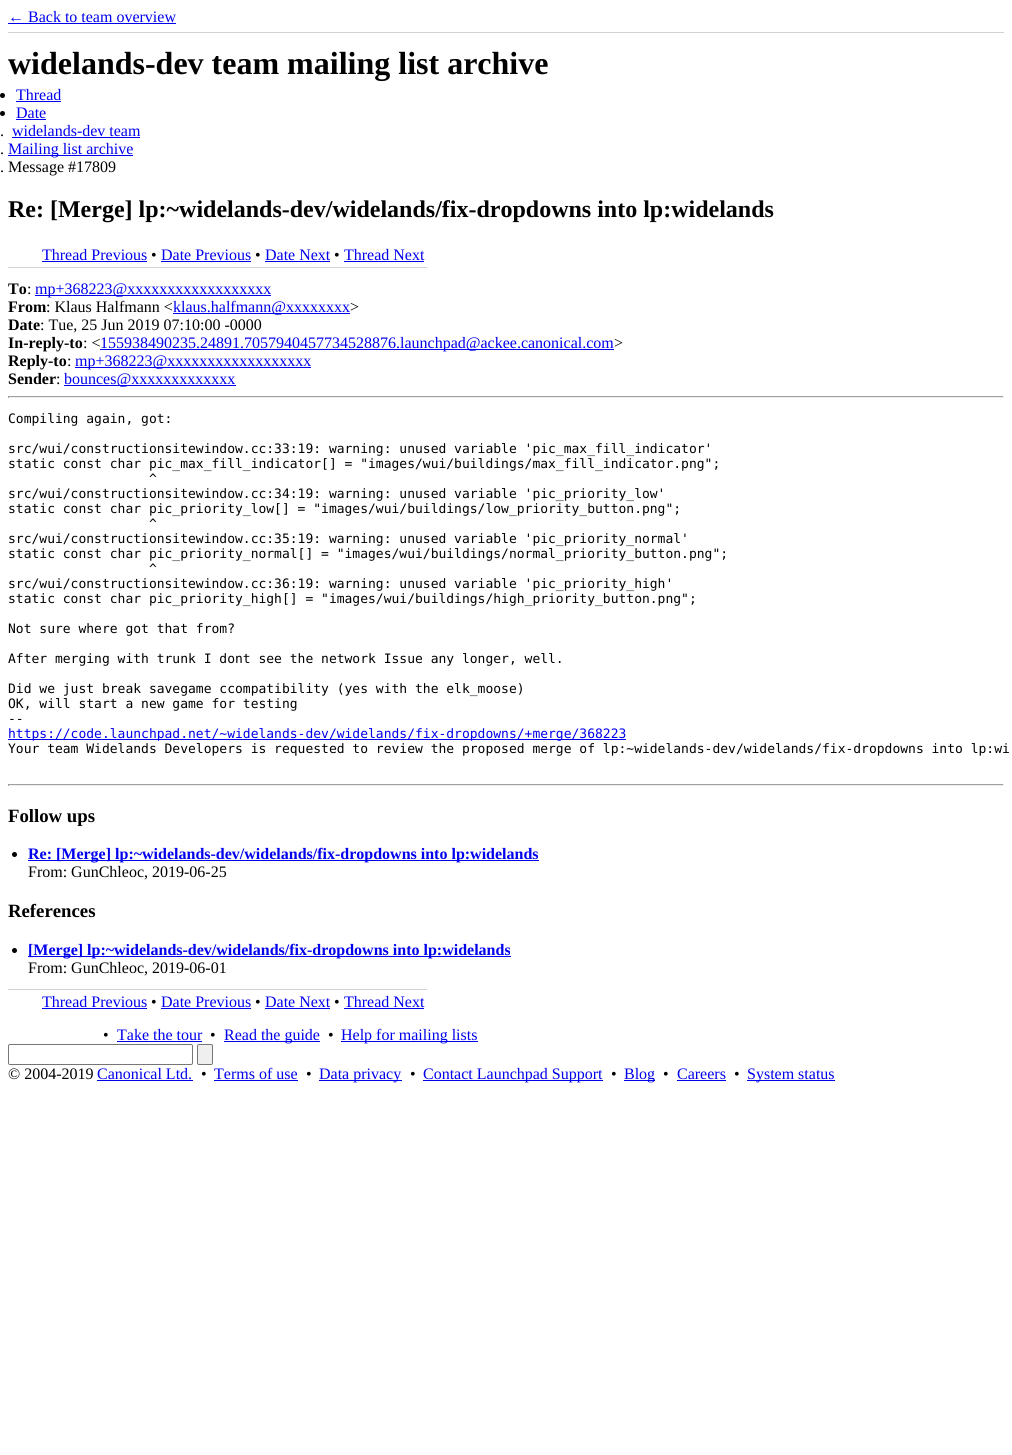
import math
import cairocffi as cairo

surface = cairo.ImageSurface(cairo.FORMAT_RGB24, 1012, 1455)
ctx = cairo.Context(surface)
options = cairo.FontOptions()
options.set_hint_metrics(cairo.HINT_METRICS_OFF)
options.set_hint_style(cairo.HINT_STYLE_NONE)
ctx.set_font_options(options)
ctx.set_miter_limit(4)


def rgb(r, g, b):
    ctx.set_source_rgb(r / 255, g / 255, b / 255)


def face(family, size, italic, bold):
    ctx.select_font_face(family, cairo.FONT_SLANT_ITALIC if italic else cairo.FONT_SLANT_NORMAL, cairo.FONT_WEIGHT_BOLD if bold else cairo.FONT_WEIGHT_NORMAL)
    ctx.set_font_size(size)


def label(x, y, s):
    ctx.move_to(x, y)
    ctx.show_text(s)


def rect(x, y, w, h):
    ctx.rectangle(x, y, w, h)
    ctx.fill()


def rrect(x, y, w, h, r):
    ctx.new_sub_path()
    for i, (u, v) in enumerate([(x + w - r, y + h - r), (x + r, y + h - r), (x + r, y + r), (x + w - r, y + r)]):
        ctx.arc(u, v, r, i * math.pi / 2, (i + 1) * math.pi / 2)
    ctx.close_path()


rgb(255, 255, 255)
ctx.paint()
rgb(210, 210, 210)
rect(8, 32, 996, 1)
face('Liberation Serif', 16, 0, 0)
rgb(0, 0, 238)
label(8, 22, '← Back to team overview')
rect(8, 23, 168, 1)
face('Liberation Serif', 32, 0, 1)
rgb(0, 0, 0)
label(8, 74, 'widelands-dev team mailing list archive')
ctx.new_path()
ctx.arc(2.5, 95.5, 2.5, 0, 2 * math.pi)
ctx.fill()
face('Liberation Serif', 16, 0, 0)
rgb(0, 0, 238)
label(16, 100, 'Thread')
rect(16, 101, 45, 1)
rgb(0, 0, 0)
ctx.new_path()
ctx.arc(2.5, 113.5, 2.5, 0, 2 * math.pi)
ctx.fill()
rgb(0, 0, 238)
label(16, 118, 'Date')
rect(16, 119, 30, 1)
rgb(0, 0, 0)
label(0, 136, '.')
rgb(0, 0, 238)
label(12, 136, 'widelands-dev team')
rect(12, 137, 128, 1)
rgb(0, 0, 0)
label(0, 154, '.')
rgb(0, 0, 238)
rect(8, 155, 125, 1)
label(8, 154, 'Mailing list archive')
rgb(0, 0, 0)
label(0, 172, '. Message #17809')
face('Liberation Serif', 24, 0, 1)
label(8, 217, 'Re: [Merge] lp:~widelands-dev/widelands/fix-dropdowns into lp:widelands')
rgb(210, 210, 210)
rect(8, 267, 419, 1)
face('Liberation Serif', 16, 0, 0)
rgb(0, 0, 238)
label(42, 260, 'Thread Previous')
rect(42, 261, 105, 1)
rgb(0, 0, 0)
label(151, 260, '•')
rgb(0, 0, 238)
label(161, 260, 'Date Previous')
rect(161, 261, 90, 1)
rgb(0, 0, 0)
label(255, 260, '•')
rgb(0, 0, 238)
label(265, 260, 'Date Next')
rect(265, 261, 65, 1)
rgb(0, 0, 0)
label(334, 260, '•')
rgb(0, 0, 238)
label(344, 260, 'Thread Next')
rect(344, 261, 80, 1)
face('Liberation Serif', 16, 0, 1)
rgb(0, 0, 0)
label(8, 294, 'To')
face('Liberation Serif', 16, 0, 0)
label(27, 294, ':')
rgb(0, 0, 238)
rect(35, 295, 236, 1)
label(35, 294, 'mp+368223@xxxxxxxxxxxxxxxxxx')
face('Liberation Serif', 16, 0, 1)
rgb(0, 0, 0)
label(8, 312, 'From')
face('Liberation Serif', 16, 0, 0)
label(46, 312, ': Klaus Halfmann <')
rgb(0, 0, 238)
rect(173, 313, 177, 1)
label(173, 312, 'klaus.halfmann@xxxxxxxx')
rgb(0, 0, 0)
label(350, 312, '>')
face('Liberation Serif', 16, 0, 1)
label(8, 330, 'Date')
face('Liberation Serif', 16, 0, 0)
label(40, 330, ': Tue, 25 Jun 2019 07:10:00 -0000')
face('Liberation Serif', 16, 0, 1)
label(8, 348, 'In-reply-to')
face('Liberation Serif', 16, 0, 0)
label(83, 348, ': <')
rgb(0, 0, 238)
rect(100, 349, 514, 1)
label(100, 348, '155938490235.24891.7057940457734528876.launchpad@ackee.canonical.com')
rgb(0, 0, 0)
label(614, 348, '>')
face('Liberation Serif', 16, 0, 1)
label(8, 366, 'Reply-to')
face('Liberation Serif', 16, 0, 0)
label(67, 366, ':')
rgb(0, 0, 238)
rect(75, 367, 236, 1)
label(75, 366, 'mp+368223@xxxxxxxxxxxxxxxxxx')
face('Liberation Serif', 16, 0, 1)
rgb(0, 0, 0)
label(8, 384, 'Sender')
face('Liberation Serif', 16, 0, 0)
label(56, 384, ':')
rgb(0, 0, 238)
rect(64, 385, 172, 1)
label(64, 384, 'bounces@xxxxxxxxxxxxx')
rgb(159, 159, 159)
rect(8, 396, 996, 1)
rgb(238, 238, 238)
rect(1003, 396, 1, 2)
rect(8, 397, 996, 1)
rgb(159, 159, 159)
rect(8, 396, 1, 2)
face('DejaVu Sans Mono', 13, 0, 0)
rgb(0, 0, 0)
label(8, 423, 'Compiling again, got:')
label(8, 453, 'src/wui/constructionsitewindow.cc:33:19: warning: unused variable \'pic_max_fill_indicator\'')
label(8, 468, 'static const char pic_max_fill_indicator[] = "images/wui/buildings/max_fill_indicator.png";')
label(149, 483, '^')
label(8, 498, 'src/wui/constructionsitewindow.cc:34:19: warning: unused variable \'pic_priority_low\'')
label(8, 513, 'static const char pic_priority_low[] = "images/wui/buildings/low_priority_button.png";')
label(149, 528, '^')
label(8, 543, 'src/wui/constructionsitewindow.cc:35:19: warning: unused variable \'pic_priority_normal\'')
label(8, 558, 'static const char pic_priority_normal[] = "images/wui/buildings/normal_priority_button.png";')
label(149, 573, '^')
label(8, 588, 'src/wui/constructionsitewindow.cc:36:19: warning: unused variable \'pic_priority_high\'')
label(8, 603, 'static const char pic_priority_high[] = "images/wui/buildings/high_priority_button.png";')
label(8, 633, 'Not sure where got that from?')
label(8, 663, 'After merging with trunk I dont see the network Issue any longer, well.')
label(8, 693, 'Did we just break savegame ccompatibility (yes with the elk_moose)')
label(8, 708, 'OK, will start a new game for testing')
label(8, 723, '--')
rgb(0, 0, 238)
rect(8, 739, 618, 1)
label(8, 738, 'https://code.launchpad.net/~widelands-dev/widelands/fix-dropdowns/+merge/368223')
rgb(0, 0, 0)
label(8, 753, 'Your team Widelands Developers is requested to review the proposed merge of lp:~widelands-dev/widelands/fix-dropdowns into lp:wi')
rgb(159, 159, 159)
rect(8, 784, 996, 1)
rgb(238, 238, 238)
rect(1003, 784, 1, 2)
rect(8, 785, 996, 1)
rgb(159, 159, 159)
rect(8, 784, 1, 2)
face('Liberation Serif', 18.75, 0, 1)
rgb(0, 0, 0)
label(8, 822, 'Follow ups')
ctx.new_path()
ctx.arc(14.5, 854.5, 2.5, 0, 2 * math.pi)
ctx.fill()
rgb(0, 0, 238)
rect(28, 860, 511, 1)
face('Liberation Serif', 16, 0, 1)
label(28, 859, 'Re: [Merge] lp:~widelands-dev/widelands/fix-dropdowns into lp:widelands')
face('Liberation Serif', 16, 0, 0)
rgb(0, 0, 0)
label(28, 877, 'From: GunChleoc, 2019-06-25')
face('Liberation Serif', 18.75, 0, 1)
label(8, 917, 'References')
ctx.new_path()
ctx.arc(14.5, 950.5, 2.5, 0, 2 * math.pi)
ctx.fill()
rgb(0, 0, 238)
rect(28, 956, 483, 1)
face('Liberation Serif', 16, 0, 1)
label(28, 955, '[Merge] lp:~widelands-dev/widelands/fix-dropdowns into lp:widelands')
face('Liberation Serif', 16, 0, 0)
rgb(0, 0, 0)
label(28, 973, 'From: GunChleoc, 2019-06-01')
rgb(210, 210, 210)
rect(8, 989, 419, 1)
rgb(0, 0, 238)
label(42, 1007, 'Thread Previous')
rect(42, 1008, 105, 1)
rgb(0, 0, 0)
label(151, 1007, '•')
rgb(0, 0, 238)
label(161, 1007, 'Date Previous')
rect(161, 1008, 90, 1)
rgb(0, 0, 0)
label(255, 1007, '•')
rgb(0, 0, 238)
label(265, 1007, 'Date Next')
rect(265, 1008, 65, 1)
rgb(0, 0, 0)
label(334, 1007, '•')
rgb(0, 0, 238)
label(344, 1007, 'Thread Next')
rect(344, 1008, 80, 1)
rgb(0, 0, 0)
label(103, 1040, '•')
rgb(0, 0, 238)
label(117, 1040, 'Take the tour')
rect(117, 1041, 85, 1)
rgb(0, 0, 0)
label(210, 1040, '•')
rgb(0, 0, 238)
rect(224, 1041, 96, 1)
label(224, 1040, 'Read the guide')
rgb(0, 0, 0)
label(328, 1040, '•')
rgb(0, 0, 238)
rect(341, 1041, 137, 1)
label(341, 1040, 'Help for mailing lists')
rrect(8.5, 1044.5, 184, 20, 1.5)
rgb(118, 118, 118)
ctx.set_line_width(1)
ctx.stroke()
rgb(239, 239, 239)
rrect(197.5, 1044.5, 15, 20, 1.5)
ctx.fill_preserve()
rgb(118, 118, 118)
ctx.stroke()
rgb(0, 0, 0)
label(8, 1079, '© 2004-2019')
rgb(0, 0, 238)
label(97, 1079, 'Canonical Ltd.')
rect(97, 1080, 96, 1)
rgb(0, 0, 0)
label(201, 1079, '•')
rgb(0, 0, 238)
label(214, 1079, 'Terms of use')
rect(214, 1080, 84, 1)
rgb(0, 0, 0)
label(306, 1079, '•')
rgb(0, 0, 238)
rect(319, 1080, 83, 1)
label(319, 1079, 'Data privacy')
rgb(0, 0, 0)
label(410, 1079, '•')
rgb(0, 0, 238)
rect(423, 1080, 180, 1)
label(423, 1079, 'Contact Launchpad Support')
rgb(0, 0, 0)
label(611, 1079, '•')
rgb(0, 0, 238)
rect(624, 1080, 31, 1)
label(624, 1079, 'Blog')
rgb(0, 0, 0)
label(663, 1079, '•')
rgb(0, 0, 238)
label(677, 1079, 'Careers')
rect(677, 1080, 49, 1)
rgb(0, 0, 0)
label(734, 1079, '•')
rgb(0, 0, 238)
rect(747, 1080, 88, 1)
label(747, 1079, 'System status')
surface.write_to_png('render.png')
